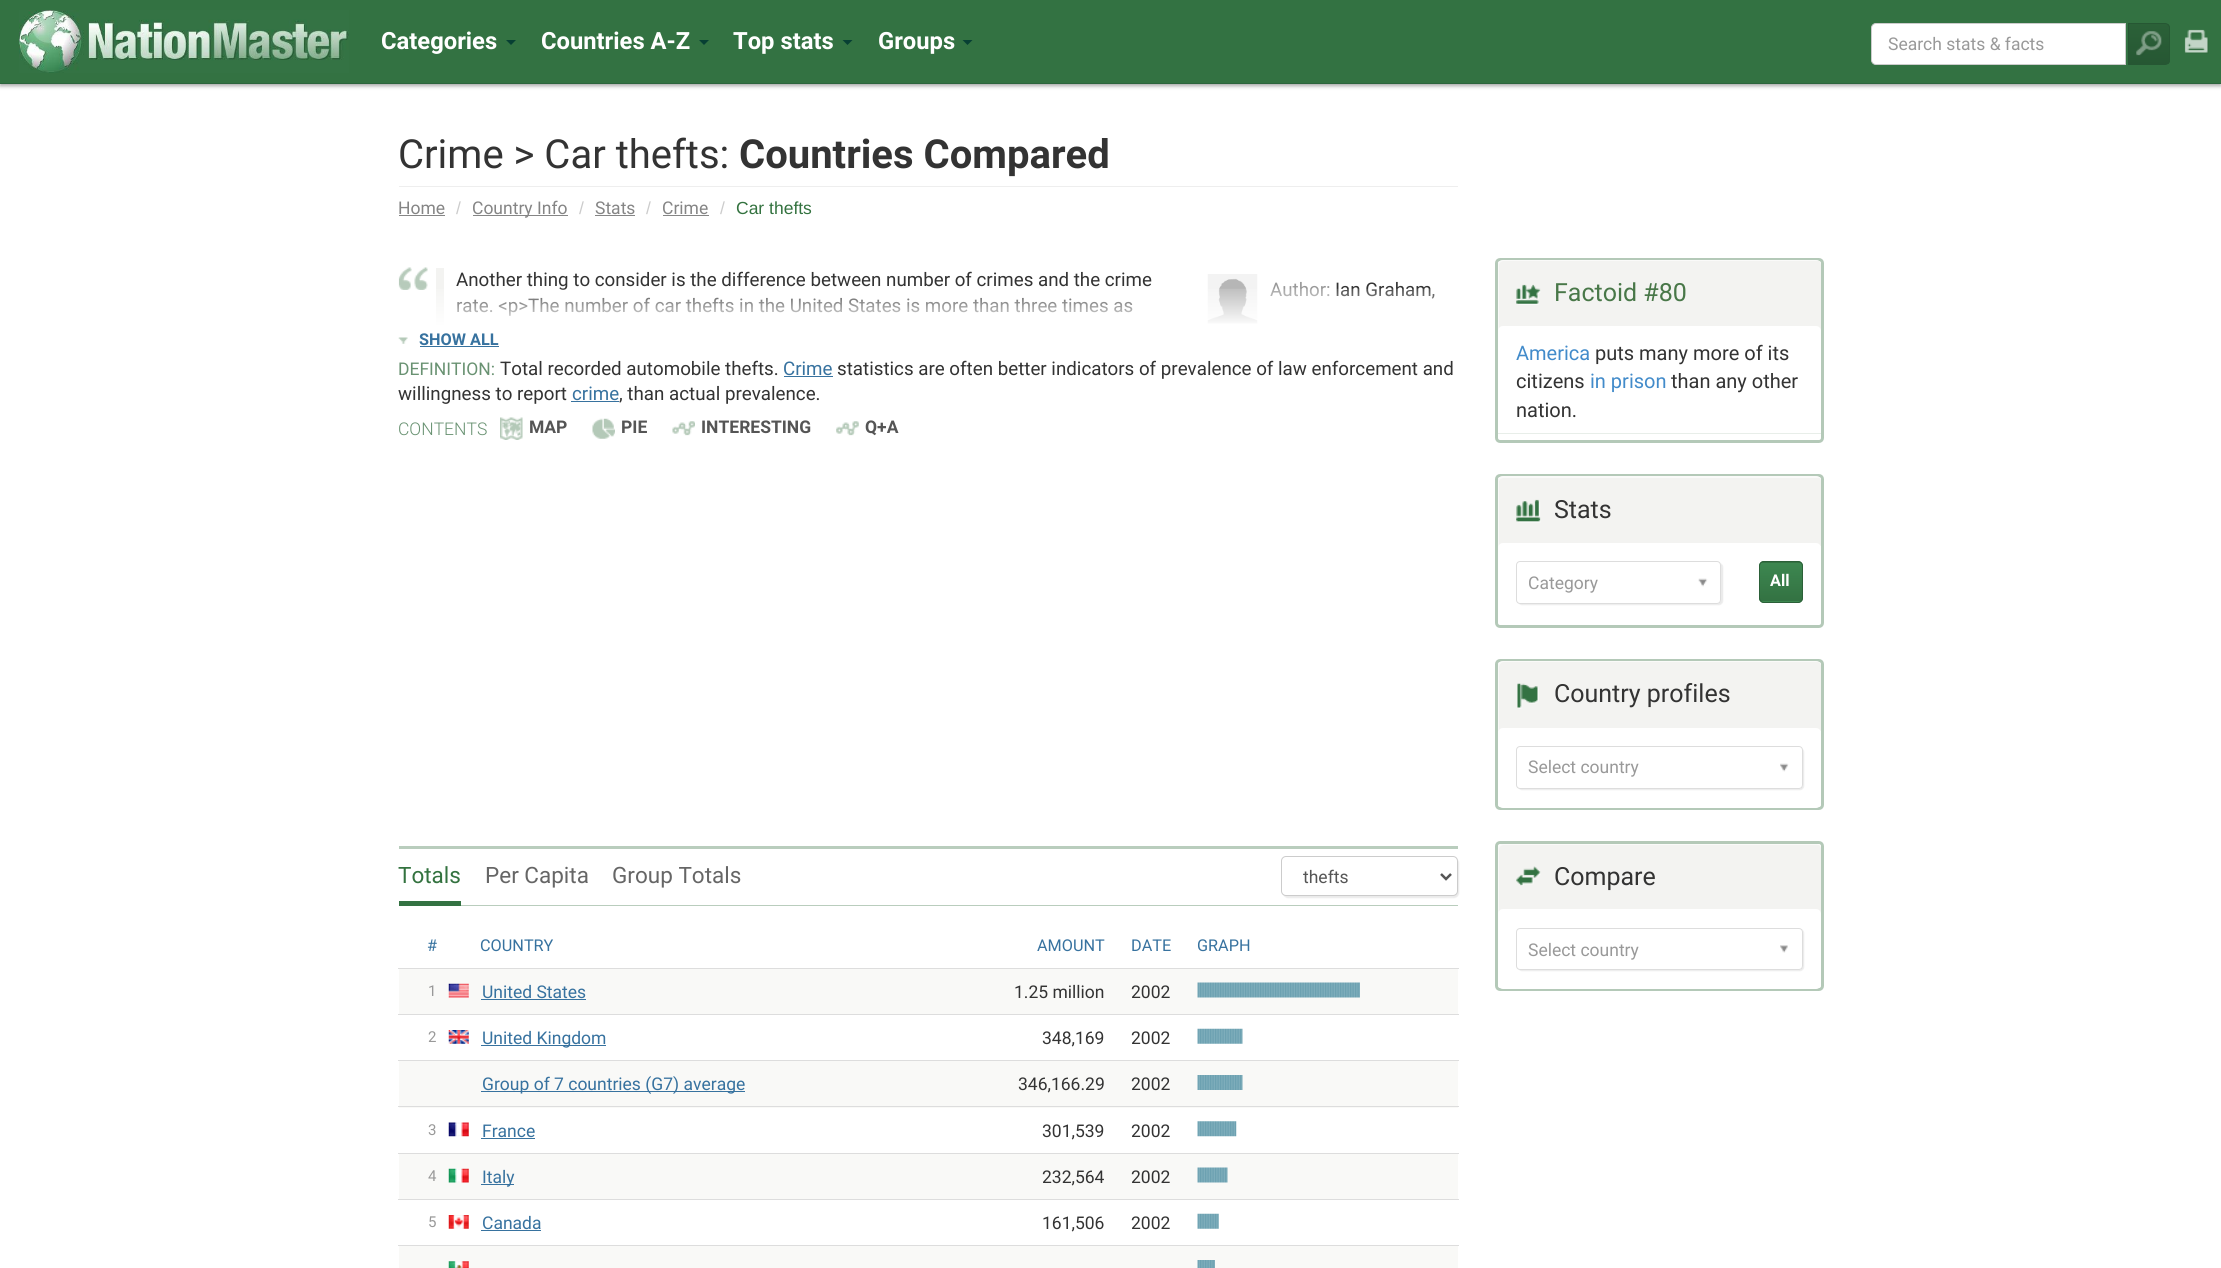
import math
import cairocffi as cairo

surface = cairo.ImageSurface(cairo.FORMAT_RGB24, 2221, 1268)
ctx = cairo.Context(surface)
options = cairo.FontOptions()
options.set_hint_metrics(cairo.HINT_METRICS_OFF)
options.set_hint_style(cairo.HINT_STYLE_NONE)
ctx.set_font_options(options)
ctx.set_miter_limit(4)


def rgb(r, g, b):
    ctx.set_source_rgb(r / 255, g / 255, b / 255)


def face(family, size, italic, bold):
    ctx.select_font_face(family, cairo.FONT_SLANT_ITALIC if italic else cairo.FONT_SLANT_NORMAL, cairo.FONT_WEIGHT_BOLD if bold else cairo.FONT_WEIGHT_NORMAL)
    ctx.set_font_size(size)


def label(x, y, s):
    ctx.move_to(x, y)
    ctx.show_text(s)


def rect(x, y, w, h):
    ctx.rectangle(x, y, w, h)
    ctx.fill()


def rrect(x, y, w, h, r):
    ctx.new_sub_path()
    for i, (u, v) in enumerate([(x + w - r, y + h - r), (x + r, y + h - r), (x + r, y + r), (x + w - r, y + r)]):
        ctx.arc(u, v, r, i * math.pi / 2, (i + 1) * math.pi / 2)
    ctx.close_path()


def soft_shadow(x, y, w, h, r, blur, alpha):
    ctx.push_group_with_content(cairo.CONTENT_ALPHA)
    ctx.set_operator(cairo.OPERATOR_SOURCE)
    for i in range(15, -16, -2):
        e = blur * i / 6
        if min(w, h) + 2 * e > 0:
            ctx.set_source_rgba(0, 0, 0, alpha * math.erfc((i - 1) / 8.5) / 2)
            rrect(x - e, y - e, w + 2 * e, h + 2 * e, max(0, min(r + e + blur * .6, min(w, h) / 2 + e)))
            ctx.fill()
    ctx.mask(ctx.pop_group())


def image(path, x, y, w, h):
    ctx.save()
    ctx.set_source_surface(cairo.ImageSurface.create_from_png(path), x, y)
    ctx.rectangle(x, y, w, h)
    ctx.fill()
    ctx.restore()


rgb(255, 255, 255)
ctx.paint()
rgb(0, 0, 0)
soft_shadow(0, 3, 2221, 83, 0, 2, 0.35)
rgb(51, 114, 66)
rect(0, 0, 2221, 83)
rgb(44, 101, 61)
rect(0, 83, 2221, 1)
image('image0.png', 19, 10, 330, 63)
face('Roboto', 23.75, 0, 1)
rgb(255, 255, 255)
label(381, 49, 'Categories')
rgb(7, 63, 51)
ctx.new_path()
ctx.move_to(506, 40)
ctx.line_to(516, 40)
ctx.line_to(511, 45)
ctx.close_path()
ctx.fill()
rgb(255, 255, 255)
label(541, 49, 'Countries A-Z')
rgb(7, 63, 51)
ctx.new_path()
ctx.move_to(699, 40)
ctx.line_to(709, 40)
ctx.line_to(704, 45)
ctx.close_path()
ctx.fill()
rgb(255, 255, 255)
label(733, 49, 'Top stats')
rgb(7, 63, 51)
ctx.new_path()
ctx.move_to(842.5, 40)
ctx.line_to(852.5, 40)
ctx.line_to(847.5, 45)
ctx.close_path()
ctx.fill()
rgb(255, 255, 255)
label(878, 49, 'Groups')
rgb(7, 63, 51)
ctx.new_path()
ctx.move_to(962.5, 40)
ctx.line_to(972.5, 40)
ctx.line_to(967.5, 45)
ctx.close_path()
ctx.fill()
rgb(255, 255, 255)
ctx.new_path()
ctx.move_to(1876, 23.5)
ctx.line_to(2125.5, 23.5)
ctx.line_to(2125.5, 64.5)
ctx.line_to(1876, 64.5)
ctx.curve_to(1873.5, 64.5, 1871.5, 62.5, 1871.5, 60)
ctx.line_to(1871.5, 28)
ctx.curve_to(1871.5, 25.5, 1873.5, 23.5, 1876, 23.5)
ctx.close_path()
ctx.fill_preserve()
rgb(204, 204, 204)
ctx.set_line_width(1)
ctx.stroke()
face('Roboto', 17.5, 0, 0)
rgb(153, 153, 153)
label(1888, 50, 'Search stats & facts')
ctx.save()
ctx.new_path()
ctx.move_to(2128, 23)
ctx.line_to(2165, 23)
ctx.curve_to(2168, 23, 2170, 25, 2170, 28)
ctx.line_to(2170, 60)
ctx.curve_to(2170, 63, 2168, 65, 2165, 65)
ctx.line_to(2128, 65)
ctx.close_path()
ctx.clip()
gradient = cairo.LinearGradient(2149, 24, 2149, 64)
gradient.add_color_stop_rgba(0, 0.169, 0.38, 0.22, 1)
gradient.add_color_stop_rgba(1, 0.149, 0.341, 0.2, 1)
ctx.set_source(gradient)
rect(2129, 24, 41, 40)
ctx.restore()
ctx.new_path()
ctx.move_to(2128.5, 23.5)
ctx.line_to(2165, 23.5)
ctx.curve_to(2167.5, 23.5, 2169.5, 25.5, 2169.5, 28)
ctx.line_to(2169.5, 60)
ctx.curve_to(2169.5, 62.5, 2167.5, 64.5, 2165, 64.5)
ctx.line_to(2128.5, 64.5)
ctx.close_path()
rgb(38, 87, 51)
ctx.stroke()
image('image1.png', 2136, 31, 26, 25)
image('image2.png', 2184, 29, 25, 25)
rgb(238, 238, 238)
rect(399, 186, 1059, 1)
face('Roboto', 40, 0, 0)
rgb(51, 51, 51)
label(398, 168, 'Crime > Car thefts:')
face('Roboto', 40, 0, 1)
label(739, 168, 'Countries Compared')
face('Roboto', 17.5, 0, 0)
rgb(133, 133, 133)
label(398, 214, 'Home')
rect(399, 215, 46, 1)
face('Liberation Sans', 17.5, 0, 0)
rgb(204, 204, 204)
label(456, 214, '/')
rgb(133, 133, 133)
rect(473, 215, 95, 1)
face('Roboto', 17.5, 0, 0)
label(472, 214, 'Country Info')
face('Liberation Sans', 17.5, 0, 0)
rgb(204, 204, 204)
label(579, 214, '/')
face('Roboto', 17.5, 0, 0)
rgb(133, 133, 133)
label(595, 214, 'Stats')
rect(595, 215, 40, 1)
face('Liberation Sans', 17.5, 0, 0)
rgb(204, 204, 204)
label(646, 214, '/')
face('Roboto', 17.5, 0, 0)
rgb(133, 133, 133)
label(662, 214, 'Crime')
rect(663, 215, 46, 1)
face('Liberation Sans', 17.5, 0, 0)
rgb(204, 204, 204)
label(720, 214, '/')
rgb(51, 114, 63)
label(736, 214, 'Car thefts')
image('image3.png', 398, 267, 30, 23)
rgb(243, 243, 241)
rect(436, 268, 8, 58)
face('Roboto', 18.75, 0, 0)
rgb(51, 51, 51)
label(456, 286, 'Another thing to consider is the difference between number of crimes and the crime')
label(456, 312, 'rate. <p>The number of car thefts in the United States is more than three times as')
image('image4.png', 1207, 274, 51, 50)
rgb(153, 153, 153)
label(1270, 296, 'Author:')
rgb(51, 51, 51)
label(1335, 296, 'Ian Graham,')
image('image5.png', 402, 288, 1033, 38)
image('image6.png', 398, 337, 10, 7)
face('Roboto', 16.25, 0, 1)
rgb(55, 114, 159)
label(419, 345, 'SHOW ALL')
rect(420, 346, 79, 1)
face('Roboto', 17.5, 0, 0)
rgb(105, 146, 114)
label(398, 375, 'DEFINITION:')
face('Roboto', 18.75, 0, 0)
rgb(51, 51, 51)
label(500, 375, 'Total recorded automobile thefts.')
rgb(55, 114, 159)
label(783, 375, 'Crime')
rect(784, 376, 49, 1)
rgb(51, 51, 51)
label(837, 375, 'statistics are often better indicators of prevalence of law enforcement and')
label(398, 400, 'willingness to report')
rgb(55, 114, 159)
label(572, 400, 'crime')
rect(571, 401, 48, 1)
rgb(51, 51, 51)
label(619, 400, ', than actual prevalence.')
face('Roboto Light', 17.5, 0, 0)
rgb(105, 146, 114)
label(398, 435, 'CONTENTS')
image('image7.png', 500, 417, 23, 23)
face('Roboto', 17.5, 0, 1)
rgb(85, 85, 85)
label(529, 433, 'MAP')
image('image8.png', 592, 418, 23, 21)
label(621, 433, 'PIE')
image('image9.png', 672, 421, 23, 15)
label(701, 433, 'INTERESTING')
image('image10.png', 836, 421, 23, 15)
label(865, 433, 'Q+A')
rgb(185, 205, 189)
rect(399, 846, 1059, 3)
rect(461, 905, 997, 1)
rgb(51, 114, 66)
rect(399, 901, 62, 5)
face('Roboto', 22.5, 0, 0)
rgb(51, 114, 63)
label(398, 883, 'Totals')
rgb(102, 102, 102)
label(485, 883, 'Per Capita')
label(612, 883, 'Group Totals')
rgb(0, 0, 0)
soft_shadow(1283, 858, 176, 40, 5, 0.5, 0.08)
rgb(255, 255, 255)
rrect(1281.5, 856.5, 176, 39, 4.5)
ctx.fill_preserve()
rgb(204, 204, 204)
ctx.stroke()
ctx.new_path()
ctx.move_to(1441, 874)
ctx.line_to(1446, 879)
ctx.line_to(1451, 874)
rgb(85, 85, 85)
ctx.set_line_width(2.5)
ctx.stroke()
face('Roboto', 17.5, 0, 0)
label(1303, 883, 'thefts')
face('Roboto', 16.25, 0, 0)
rgb(55, 114, 159)
label(427, 951, '#')
label(480, 951, 'COUNTRY')
label(1037, 951, 'AMOUNT')
label(1131, 951, 'DATE')
label(1197, 951, 'GRAPH')
rgb(249, 249, 247)
rect(399, 969, 1059, 45)
rgb(221, 221, 221)
rect(398, 968, 1061, 1)
image('image11.png', 1197, 982, 163, 16)
face('Roboto', 15, 0, 0)
rgb(153, 153, 153)
label(428, 996, '1')
image('image12.png', 448, 983, 21, 15)
face('Roboto', 17.5, 0, 0)
rgb(55, 114, 159)
label(482, 998, 'United States')
rect(481, 999, 105, 1)
rgb(51, 51, 51)
label(1014, 998, '1.25 million')
label(1131, 998, '2002')
rgb(221, 221, 221)
rect(398, 1014, 1061, 1)
image('image13.png', 1197, 1028, 46, 16)
face('Roboto', 15, 0, 0)
rgb(153, 153, 153)
label(428, 1042, '2')
image('image14.png', 448, 1030, 21, 14)
rgb(55, 114, 159)
rect(481, 1045, 125, 1)
face('Roboto', 17.5, 0, 0)
label(482, 1044, 'United Kingdom')
rgb(51, 51, 51)
label(1042, 1044, '348,169')
label(1131, 1044, '2002')
rgb(249, 249, 247)
rect(399, 1061, 1059, 47)
rgb(221, 221, 221)
rect(398, 1060, 1061, 1)
image('image15.png', 1197, 1075, 46, 15)
rgb(55, 114, 159)
rect(481, 1091, 264, 1)
label(482, 1090, 'Group of 7 countries (G7) average')
rgb(51, 51, 51)
label(1018, 1090, '346,166.29')
label(1131, 1090, '2002')
rgb(221, 221, 221)
rect(398, 1106, 1061, 1)
image('image16.png', 1197, 1121, 40, 16)
face('Roboto', 15, 0, 0)
rgb(153, 153, 153)
label(428, 1135, '3')
image('image17.png', 448, 1122, 21, 15)
face('Roboto', 17.5, 0, 0)
rgb(55, 114, 159)
label(482, 1137, 'France')
rect(481, 1138, 54, 1)
rgb(51, 51, 51)
label(1042, 1137, '301,539')
label(1131, 1137, '2002')
rgb(249, 249, 247)
rect(399, 1154, 1059, 45)
rgb(221, 221, 221)
rect(398, 1153, 1061, 1)
image('image18.png', 1197, 1167, 31, 16)
face('Roboto', 15, 0, 0)
rgb(153, 153, 153)
label(428, 1181, '4')
image('image19.png', 448, 1168, 21, 15)
rgb(55, 114, 159)
rect(481, 1184, 33, 1)
face('Roboto', 17.5, 0, 0)
label(482, 1183, 'Italy')
rgb(51, 51, 51)
label(1042, 1183, '232,564')
label(1131, 1183, '2002')
rgb(221, 221, 221)
rect(398, 1199, 1061, 1)
image('image20.png', 1197, 1213, 22, 16)
face('Roboto', 15, 0, 0)
rgb(153, 153, 153)
label(428, 1227, '5')
image('image21.png', 448, 1215, 21, 14)
face('Roboto', 17.5, 0, 0)
rgb(55, 114, 159)
label(482, 1229, 'Canada')
rect(481, 1230, 60, 1)
rgb(51, 51, 51)
label(1042, 1229, '161,506')
label(1131, 1229, '2002')
rgb(249, 249, 247)
rect(399, 1246, 1059, 22)
rgb(221, 221, 221)
rect(398, 1245, 1061, 1)
image('image22.png', 1197, 1260, 18, 8)
image('image23.png', 448, 1261, 21, 7)
rrect(1496.5, 259.5, 326, 182, 3.5)
rgb(180, 201, 184)
ctx.set_line_width(3)
ctx.stroke()
rgb(243, 243, 241)
ctx.new_path()
ctx.move_to(1503, 260)
ctx.line_to(1816, 260)
ctx.curve_to(1819, 260, 1821, 262, 1821, 265)
ctx.line_to(1821, 330)
ctx.line_to(1498, 330)
ctx.line_to(1498, 265)
ctx.curve_to(1498, 262, 1500, 260, 1503, 260)
ctx.close_path()
ctx.fill()
ctx.set_source_rgba(1, 1, 1, 0.55)
ctx.new_path()
ctx.move_to(1504, 261)
ctx.line_to(1819, 261)
ctx.curve_to(1818, 260, 1817, 260, 1816, 260)
ctx.line_to(1503, 260)
ctx.curve_to(1500, 260, 1498, 262, 1498, 265)
ctx.line_to(1498, 330)
ctx.line_to(1499, 330)
ctx.line_to(1499, 266)
ctx.curve_to(1499, 263, 1501, 261, 1504, 261)
ctx.close_path()
ctx.fill()
image('image24.png', 1516, 284, 25, 21)
face('Roboto', 25, 0, 0)
rgb(72, 119, 72)
label(1554, 301, 'Factoid #80')
rgb(255, 255, 255)
rrect(1498, 326, 323, 114, 5)
ctx.fill()
rgb(232, 238, 233)
rect(1498, 433, 323, 1)
face('Roboto', 20, 0, 0)
rgb(66, 139, 202)
label(1516, 360, 'America')
rgb(51, 51, 51)
label(1595, 360, 'puts many more of its')
label(1516, 388, 'citizens')
rgb(66, 139, 202)
label(1590, 388, 'in prison')
rgb(51, 51, 51)
label(1671, 388, 'than any other')
label(1516, 417, 'nation.')
rrect(1496.5, 475.5, 326, 151, 3.5)
rgb(180, 201, 184)
ctx.stroke()
rgb(243, 243, 241)
ctx.new_path()
ctx.move_to(1503, 476)
ctx.line_to(1816, 476)
ctx.curve_to(1819, 476, 1821, 478, 1821, 481)
ctx.line_to(1821, 546)
ctx.line_to(1498, 546)
ctx.line_to(1498, 481)
ctx.curve_to(1498, 478, 1500, 476, 1503, 476)
ctx.close_path()
ctx.fill()
ctx.set_source_rgba(1, 1, 1, 0.55)
ctx.new_path()
ctx.move_to(1504, 478)
ctx.line_to(1818, 478)
ctx.curve_to(1819, 478, 1820, 478, 1821, 479)
ctx.curve_to(1820, 477, 1818, 476, 1816, 476)
ctx.line_to(1503, 476)
ctx.curve_to(1500, 476, 1498, 478, 1498, 481)
ctx.line_to(1498, 546)
ctx.line_to(1499, 546)
ctx.line_to(1499, 482)
ctx.curve_to(1499, 480, 1501, 478, 1504, 478)
ctx.close_path()
ctx.fill()
image('image25.png', 1516, 499, 25, 24)
face('Roboto', 25, 0, 0)
rgb(51, 51, 51)
label(1554, 518, 'Stats')
rgb(255, 255, 255)
rrect(1498, 543, 323, 82, 5)
ctx.fill()
ctx.save()
ctx.set_fill_rule(cairo.FILL_RULE_EVEN_ODD)
ctx.new_path()
ctx.move_to(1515, 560)
ctx.line_to(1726, 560)
ctx.line_to(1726, 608)
ctx.line_to(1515, 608)
ctx.close_path()
ctx.move_to(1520, 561)
ctx.line_to(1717, 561)
ctx.curve_to(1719, 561, 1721, 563, 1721, 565)
ctx.line_to(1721, 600)
ctx.curve_to(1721, 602, 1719, 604, 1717, 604)
ctx.line_to(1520, 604)
ctx.curve_to(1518, 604, 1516, 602, 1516, 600)
ctx.line_to(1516, 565)
ctx.curve_to(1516, 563, 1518, 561, 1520, 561)
ctx.close_path()
ctx.clip()
rgb(0, 0, 0)
soft_shadow(1518, 563, 205, 42, 4, 0.5, 0.08)
ctx.restore()
rrect(1516.5, 561.5, 204, 42, 3.5)
rgb(221, 221, 221)
ctx.set_line_width(1)
ctx.stroke()
face('Roboto', 17.5, 0, 0)
rgb(153, 153, 153)
label(1528, 589, 'Category')
image('image26.png', 1698, 578, 10, 9)
ctx.save()
rrect(1759, 561, 44, 42, 5)
ctx.clip()
gradient = cairo.LinearGradient(1781, 524, 1781, 563)
gradient.add_color_stop_rgba(0, 0.239, 0.529, 0.314, 1)
gradient.add_color_stop_rgba(1, 0.2, 0.447, 0.259, 1)
ctx.set_source(gradient)
rect(1759, 561, 44, 2)
gradient = cairo.LinearGradient(1781, 563, 1781, 601)
gradient.add_color_stop_rgba(0, 0.239, 0.529, 0.314, 1)
gradient.add_color_stop_rgba(1, 0.2, 0.447, 0.259, 1)
ctx.set_source(gradient)
rect(1759, 563, 44, 38)
gradient = cairo.LinearGradient(1781, 601, 1781, 640)
gradient.add_color_stop_rgba(0, 0.239, 0.529, 0.314, 1)
gradient.add_color_stop_rgba(1, 0.2, 0.447, 0.259, 1)
ctx.set_source(gradient)
rect(1759, 601, 44, 2)
ctx.restore()
rrect(1759.5, 561.5, 43, 41, 4.5)
rgb(43, 96, 56)
ctx.stroke()
face('Roboto', 16.25, 0, 1)
rgb(255, 255, 255)
label(1770, 586, 'All')
rrect(1496.5, 660.5, 326, 148, 3.5)
rgb(180, 201, 184)
ctx.set_line_width(3)
ctx.stroke()
rgb(243, 243, 241)
ctx.new_path()
ctx.move_to(1503, 661)
ctx.line_to(1816, 661)
ctx.curve_to(1819, 661, 1821, 663, 1821, 666)
ctx.line_to(1821, 731)
ctx.line_to(1498, 731)
ctx.line_to(1498, 666)
ctx.curve_to(1498, 663, 1500, 661, 1503, 661)
ctx.close_path()
ctx.fill()
ctx.set_source_rgba(1, 1, 1, 0.55)
ctx.new_path()
ctx.move_to(1504, 662)
ctx.line_to(1818, 662)
ctx.line_to(1820, 663)
ctx.curve_to(1819, 662, 1818, 661, 1816, 661)
ctx.line_to(1503, 661)
ctx.curve_to(1500, 661, 1498, 663, 1498, 666)
ctx.line_to(1498, 731)
ctx.line_to(1499, 731)
ctx.line_to(1499, 668)
ctx.curve_to(1499, 665, 1501, 662, 1504, 662)
ctx.close_path()
ctx.fill()
image('image27.png', 1517, 683, 22, 26)
face('Roboto', 25, 0, 0)
rgb(51, 51, 51)
label(1554, 702, 'Country profiles')
rgb(255, 255, 255)
rrect(1498, 728, 323, 80, 5)
ctx.fill()
ctx.save()
ctx.set_fill_rule(cairo.FILL_RULE_EVEN_ODD)
ctx.new_path()
ctx.move_to(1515, 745)
ctx.line_to(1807, 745)
ctx.line_to(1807, 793)
ctx.line_to(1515, 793)
ctx.close_path()
ctx.move_to(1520, 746)
ctx.line_to(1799, 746)
ctx.curve_to(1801, 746, 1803, 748, 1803, 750)
ctx.line_to(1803, 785)
ctx.curve_to(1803, 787, 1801, 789, 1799, 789)
ctx.line_to(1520, 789)
ctx.curve_to(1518, 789, 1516, 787, 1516, 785)
ctx.line_to(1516, 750)
ctx.curve_to(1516, 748, 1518, 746, 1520, 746)
ctx.close_path()
ctx.clip()
rgb(0, 0, 0)
soft_shadow(1518, 748, 286, 42, 4, 0.5, 0.08)
ctx.restore()
rrect(1516.5, 746.5, 286, 42, 3.5)
rgb(221, 221, 221)
ctx.set_line_width(1)
ctx.stroke()
face('Roboto', 17.5, 0, 0)
rgb(153, 153, 153)
label(1528, 773, 'Select country')
image('image28.png', 1780, 763, 9, 9)
rrect(1496.5, 842.5, 326, 147, 3.5)
rgb(180, 201, 184)
ctx.set_line_width(3)
ctx.stroke()
rgb(243, 243, 241)
ctx.new_path()
ctx.move_to(1503, 844)
ctx.line_to(1816, 844)
ctx.curve_to(1819, 844, 1821, 846, 1821, 849)
ctx.line_to(1821, 913)
ctx.line_to(1498, 913)
ctx.line_to(1498, 849)
ctx.curve_to(1498, 846, 1500, 844, 1503, 844)
ctx.close_path()
ctx.fill()
ctx.set_source_rgba(1, 1, 1, 0.55)
ctx.new_path()
ctx.move_to(1504, 845)
ctx.line_to(1819, 845)
ctx.curve_to(1818, 844, 1817, 844, 1816, 844)
ctx.line_to(1503, 844)
ctx.curve_to(1500, 844, 1498, 846, 1498, 849)
ctx.line_to(1498, 913)
ctx.line_to(1499, 913)
ctx.line_to(1499, 850)
ctx.curve_to(1499, 847, 1501, 845, 1504, 845)
ctx.close_path()
ctx.fill()
image('image29.png', 1516, 866, 25, 20)
face('Roboto', 25, 0, 0)
rgb(51, 51, 51)
label(1554, 885, 'Compare')
rgb(255, 255, 255)
rrect(1498, 909, 323, 80, 5)
ctx.fill()
ctx.save()
ctx.set_fill_rule(cairo.FILL_RULE_EVEN_ODD)
ctx.new_path()
ctx.move_to(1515, 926)
ctx.line_to(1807, 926)
ctx.line_to(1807, 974)
ctx.line_to(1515, 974)
ctx.close_path()
ctx.move_to(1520, 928)
ctx.line_to(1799, 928)
ctx.curve_to(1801, 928, 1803, 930, 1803, 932)
ctx.line_to(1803, 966)
ctx.curve_to(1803, 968, 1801, 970, 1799, 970)
ctx.line_to(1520, 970)
ctx.curve_to(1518, 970, 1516, 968, 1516, 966)
ctx.line_to(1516, 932)
ctx.curve_to(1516, 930, 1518, 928, 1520, 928)
ctx.close_path()
ctx.clip()
rgb(0, 0, 0)
soft_shadow(1518, 929, 286, 42, 4, 0.5, 0.08)
ctx.restore()
rrect(1516.5, 928.5, 286, 41, 3.5)
rgb(221, 221, 221)
ctx.set_line_width(1)
ctx.stroke()
face('Roboto', 17.5, 0, 0)
rgb(153, 153, 153)
label(1528, 956, 'Select country')
image('image30.png', 1780, 945, 8, 8)
surface.write_to_png('render.png')
